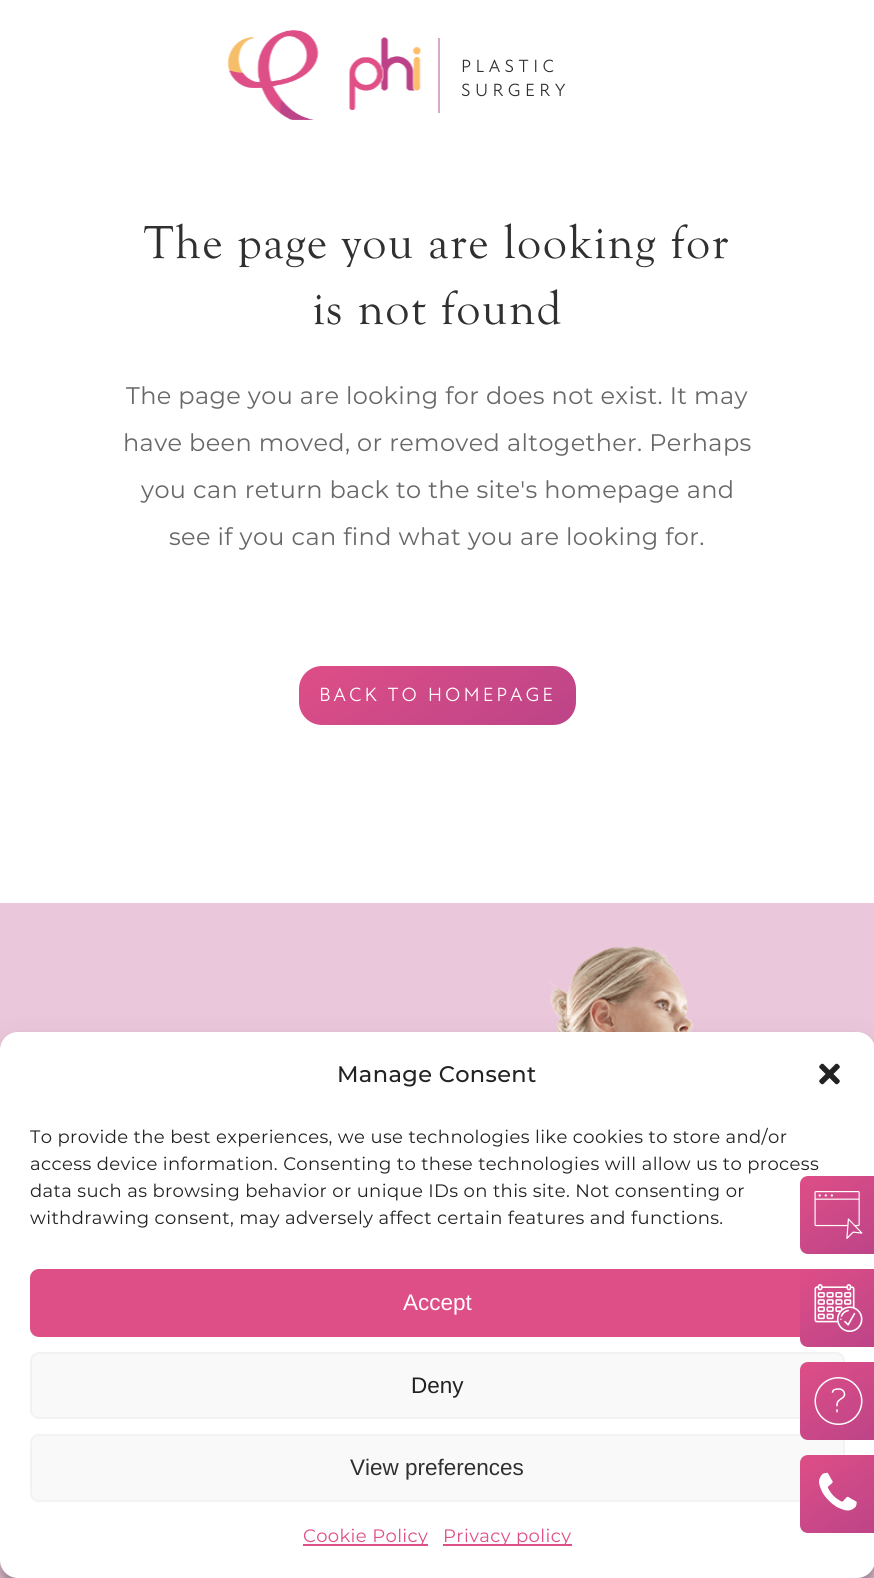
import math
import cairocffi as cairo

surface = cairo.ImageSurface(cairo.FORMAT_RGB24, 874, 1578)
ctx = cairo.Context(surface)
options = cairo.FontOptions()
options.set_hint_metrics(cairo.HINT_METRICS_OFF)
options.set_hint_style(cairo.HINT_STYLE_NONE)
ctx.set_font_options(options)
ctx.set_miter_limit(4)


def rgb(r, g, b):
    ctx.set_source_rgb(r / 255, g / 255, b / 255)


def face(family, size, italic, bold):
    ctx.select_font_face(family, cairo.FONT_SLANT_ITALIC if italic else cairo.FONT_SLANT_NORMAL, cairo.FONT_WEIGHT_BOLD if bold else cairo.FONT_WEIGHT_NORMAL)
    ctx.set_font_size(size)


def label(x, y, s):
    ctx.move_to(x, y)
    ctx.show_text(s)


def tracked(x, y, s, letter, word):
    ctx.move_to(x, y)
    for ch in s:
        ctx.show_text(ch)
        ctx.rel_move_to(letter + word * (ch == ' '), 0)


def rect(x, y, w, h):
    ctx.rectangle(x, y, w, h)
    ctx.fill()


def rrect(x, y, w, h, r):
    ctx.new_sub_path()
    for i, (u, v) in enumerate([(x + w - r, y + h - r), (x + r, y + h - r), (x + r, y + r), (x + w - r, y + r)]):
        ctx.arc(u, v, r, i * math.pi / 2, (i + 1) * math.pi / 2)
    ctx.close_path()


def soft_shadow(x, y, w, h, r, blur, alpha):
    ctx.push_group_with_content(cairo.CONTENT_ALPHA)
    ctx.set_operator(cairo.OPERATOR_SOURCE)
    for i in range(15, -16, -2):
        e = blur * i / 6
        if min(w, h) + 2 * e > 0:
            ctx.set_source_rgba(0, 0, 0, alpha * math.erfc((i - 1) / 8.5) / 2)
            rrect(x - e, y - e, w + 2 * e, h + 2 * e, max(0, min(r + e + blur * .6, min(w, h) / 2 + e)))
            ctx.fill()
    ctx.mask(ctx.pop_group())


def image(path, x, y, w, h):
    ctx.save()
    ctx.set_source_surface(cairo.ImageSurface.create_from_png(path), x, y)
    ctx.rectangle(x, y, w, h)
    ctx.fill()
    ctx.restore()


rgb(255, 255, 255)
ctx.paint()
image('image0.png', 227, 30, 92, 90)
image('image1.png', 348, 37, 73, 74)
rgb(215, 171, 196)
rect(438, 38, 2, 75)
face('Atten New', 18, 0, 0)
rgb(48, 48, 48)
tracked(461, 72, 'PLASTIC', 4.5, 0)
tracked(461, 96, 'SURGERY', 4.5, 0)
face('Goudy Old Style', 48, 0, 0)
tracked(144, 258, 'The page you are looking for', 1.5, 0)
tracked(312, 324, 'is not found', 1.5, 0)
face('Montserrat', 24, 0, 0)
rgb(104, 104, 104)
tracked(126, 404, 'The page you are looking for does not exist. It may', 0.38, 0)
tracked(123, 451, 'have been moved, or removed altogether. Perhaps', 0.38, 0)
tracked(141, 498, 'you can return back to the site\'s homepage and', 0.38, 0)
tracked(169, 545, 'see if you can find what you are looking for.', 0.38, 0)
gradient = cairo.LinearGradient(380, 611, 494, 780)
gradient.add_color_stop_rgba(0, 0.871, 0.306, 0.529, 1)
gradient.add_color_stop_rgba(1, 0.737, 0.267, 0.533, 1)
ctx.set_source(gradient)
rrect(299, 666, 277, 59, 23)
ctx.fill()
face('Atten New', 19.5, 0, 0)
rgb(255, 255, 255)
tracked(319, 701, 'BACK TO HOMEPAGE', 3, 0)
rgb(235, 199, 219)
rect(0, 903, 874, 675)
image('image2.png', 547, 946, 147, 86)
rgb(0, 0, 0)
soft_shadow(0, 1041, 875, 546, 18, 4.5, 0.23)
soft_shadow(0, 1047, 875, 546, 18, 15, 0.19)
rgb(255, 255, 255)
rrect(0, 1032, 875, 546, 18)
ctx.fill()
face('Montserrat Medium', 22.5, 0, 0)
rgb(34, 34, 34)
tracked(337, 1082, 'Manage Consent', 0.38, 0)
image('image3.png', 819, 1063, 21, 22)
face('Montserrat', 18, 0, 0)
tracked(30, 1143, 'To provide the best experiences, we use technologies like cookies to store and/or', 0.38, 0)
tracked(30, 1170, 'access device information. Consenting to these technologies will allow us to process', 0.38, 0)
tracked(30, 1197, 'data such as browsing behavior or unique IDs on this site. Not consenting or', 0.38, 0)
tracked(30, 1224, 'withdrawing consent, may adversely affect certain features and functions.', 0.38, 0)
rgb(222, 78, 135)
rrect(31, 1270, 813, 66, 8)
ctx.fill_preserve()
ctx.stroke()
face('Liberation Sans', 22.5, 0, 0)
rgb(255, 255, 255)
label(403, 1310, 'Accept')
rgb(249, 249, 249)
rrect(31, 1353, 813, 65, 8)
ctx.fill_preserve()
rgb(242, 242, 242)
ctx.stroke()
rgb(34, 34, 34)
label(411, 1393, 'Deny')
rgb(249, 249, 249)
rrect(31, 1435, 813, 66, 8)
ctx.fill_preserve()
rgb(242, 242, 242)
ctx.stroke()
rgb(48, 48, 48)
label(350, 1475, 'View preferences')
rgb(222, 78, 135)
rect(303, 1544, 125, 2)
face('Montserrat', 18, 0, 0)
tracked(303, 1542, 'Cookie Policy', 0.38, 0)
rect(443, 1544, 129, 2)
tracked(443, 1542, 'Privacy policy', 0.38, 0)
gradient = cairo.LinearGradient(808, 1170, 869, 1260)
gradient.add_color_stop_rgba(0, 0.871, 0.306, 0.529, 1)
gradient.add_color_stop_rgba(1, 0.737, 0.267, 0.533, 1)
ctx.set_source(gradient)
ctx.new_path()
ctx.move_to(808, 1176)
ctx.line_to(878, 1176)
ctx.line_to(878, 1254)
ctx.line_to(808, 1254)
ctx.curve_to(803.5, 1254, 800, 1250.5, 800, 1246)
ctx.line_to(800, 1184)
ctx.curve_to(800, 1179.5, 803.5, 1176, 808, 1176)
ctx.close_path()
ctx.fill()
image('image4.png', 814, 1191, 49, 48)
gradient = cairo.LinearGradient(808, 1263, 869, 1353)
gradient.add_color_stop_rgba(0, 0.871, 0.306, 0.529, 1)
gradient.add_color_stop_rgba(1, 0.737, 0.267, 0.533, 1)
ctx.set_source(gradient)
ctx.new_path()
ctx.move_to(808, 1269)
ctx.line_to(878, 1269)
ctx.line_to(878, 1347)
ctx.line_to(808, 1347)
ctx.curve_to(803.5, 1347, 800, 1343.5, 800, 1339)
ctx.line_to(800, 1277)
ctx.curve_to(800, 1272.5, 803.5, 1269, 808, 1269)
ctx.close_path()
ctx.fill()
image('image5.png', 814, 1284, 49, 48)
gradient = cairo.LinearGradient(808, 1356, 869, 1446)
gradient.add_color_stop_rgba(0, 0.871, 0.306, 0.529, 1)
gradient.add_color_stop_rgba(1, 0.737, 0.267, 0.533, 1)
ctx.set_source(gradient)
ctx.new_path()
ctx.move_to(808, 1362)
ctx.line_to(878, 1362)
ctx.line_to(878, 1440)
ctx.line_to(808, 1440)
ctx.curve_to(803.5, 1440, 800, 1436.5, 800, 1432)
ctx.line_to(800, 1370)
ctx.curve_to(800, 1365.5, 803.5, 1362, 808, 1362)
ctx.close_path()
ctx.fill()
image('image6.png', 814, 1377, 49, 48)
gradient = cairo.LinearGradient(808, 1449, 869, 1539)
gradient.add_color_stop_rgba(0, 0.871, 0.306, 0.529, 1)
gradient.add_color_stop_rgba(1, 0.737, 0.267, 0.533, 1)
ctx.set_source(gradient)
ctx.new_path()
ctx.move_to(808, 1455)
ctx.line_to(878, 1455)
ctx.line_to(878, 1533)
ctx.line_to(808, 1533)
ctx.curve_to(803.5, 1533, 800, 1529.5, 800, 1525)
ctx.line_to(800, 1463)
ctx.curve_to(800, 1458.5, 803.5, 1455, 808, 1455)
ctx.close_path()
ctx.fill()
image('image7.png', 819, 1472, 38, 39)
surface.write_to_png('render.png')
